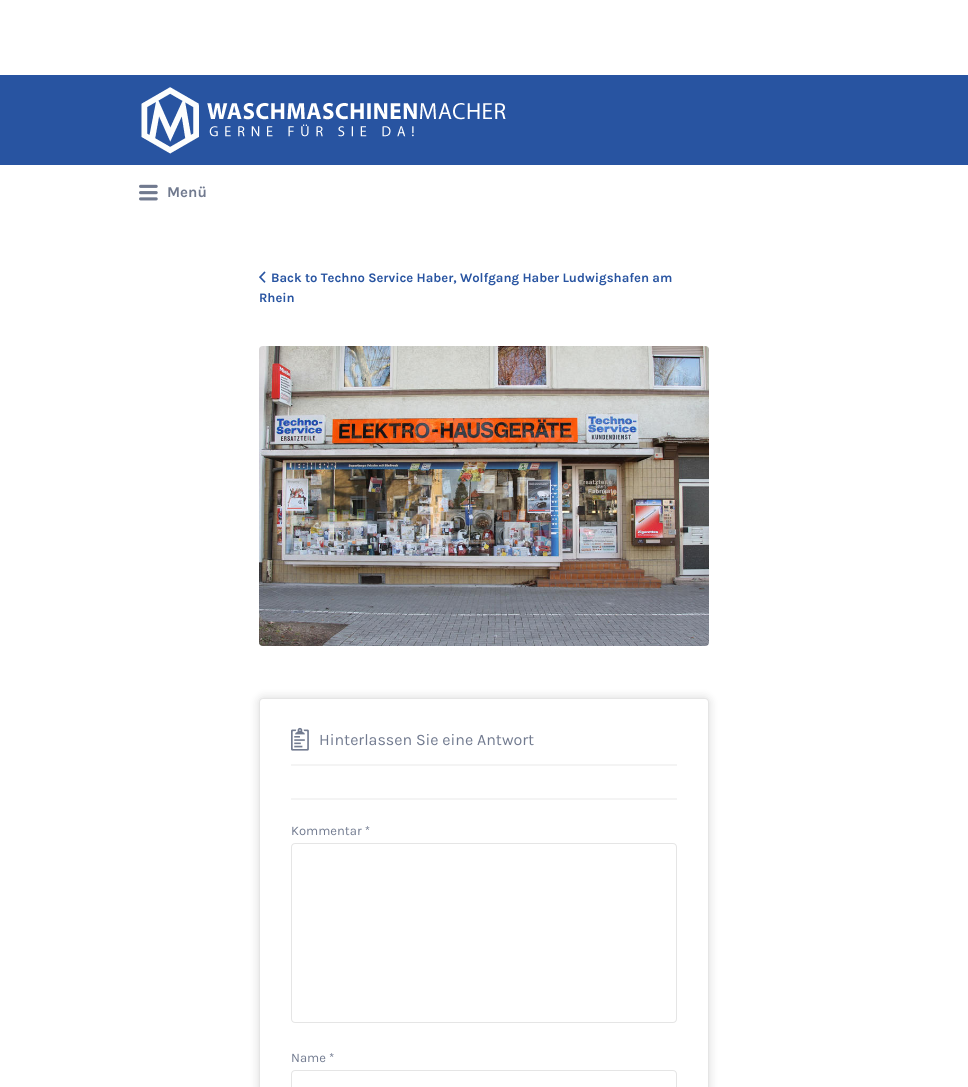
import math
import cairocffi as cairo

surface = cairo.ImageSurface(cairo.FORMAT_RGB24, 968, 1087)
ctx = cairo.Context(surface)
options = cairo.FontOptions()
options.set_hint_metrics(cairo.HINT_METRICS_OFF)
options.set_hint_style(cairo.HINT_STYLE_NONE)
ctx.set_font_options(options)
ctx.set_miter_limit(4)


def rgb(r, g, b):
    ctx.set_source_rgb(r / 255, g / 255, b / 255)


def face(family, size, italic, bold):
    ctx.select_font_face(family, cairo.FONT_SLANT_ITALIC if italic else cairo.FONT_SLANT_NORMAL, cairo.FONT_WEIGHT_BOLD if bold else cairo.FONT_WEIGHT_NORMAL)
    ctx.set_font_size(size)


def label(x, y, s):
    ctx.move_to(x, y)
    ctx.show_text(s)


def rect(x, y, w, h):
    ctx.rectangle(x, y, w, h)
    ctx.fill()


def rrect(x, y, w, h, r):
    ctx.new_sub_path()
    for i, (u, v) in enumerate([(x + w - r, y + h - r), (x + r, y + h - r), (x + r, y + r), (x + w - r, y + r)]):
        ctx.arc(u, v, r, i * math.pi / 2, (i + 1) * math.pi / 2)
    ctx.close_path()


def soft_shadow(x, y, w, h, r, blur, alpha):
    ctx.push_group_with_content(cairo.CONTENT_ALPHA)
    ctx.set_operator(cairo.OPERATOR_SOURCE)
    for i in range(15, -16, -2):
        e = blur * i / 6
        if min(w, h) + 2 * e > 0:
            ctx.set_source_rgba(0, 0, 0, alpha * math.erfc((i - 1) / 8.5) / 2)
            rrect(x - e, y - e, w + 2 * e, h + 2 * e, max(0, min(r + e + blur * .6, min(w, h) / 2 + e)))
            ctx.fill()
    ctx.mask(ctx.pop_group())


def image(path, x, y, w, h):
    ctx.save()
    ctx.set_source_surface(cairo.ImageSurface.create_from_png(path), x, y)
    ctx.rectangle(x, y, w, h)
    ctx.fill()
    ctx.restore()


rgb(255, 255, 255)
ctx.paint()
rgb(40, 84, 161)
rect(0, 75, 968, 90)
image('image0.png', 141, 87, 365, 67)
image('image1.png', 139, 184, 19, 17)
face('Karla', 15, 0, 1)
rgb(113, 122, 143)
label(167, 197, 'Menü')
image('image2.png', 259, 271, 7, 12)
face('Karla', 13, 0, 1)
rgb(40, 84, 161)
label(271, 282, 'Back to Techno Service Haber, Wolfgang Haber Ludwigshafen am')
label(259, 302, 'Rhein')
image('image3.png', 259, 346, 450, 300)
rgb(0, 0, 0)
soft_shadow(259, 698, 450, 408, 4, 5, 0.15)
rgb(255, 255, 255)
rrect(259.5, 698.5, 449, 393, 3.5)
ctx.fill_preserve()
rgb(229, 229, 229)
ctx.set_line_width(1)
ctx.stroke()
rgb(244, 244, 244)
rect(291, 764, 386, 2)
image('image4.png', 291, 727, 18, 24)
face('Karla', 16, 0, 0)
rgb(113, 122, 143)
label(319, 745, 'Hinterlassen Sie eine Antwort')
rgb(244, 244, 244)
rect(291, 798, 386, 2)
face('Karla', 13, 0, 0)
rgb(113, 122, 143)
label(291, 835, 'Kommentar *')
rrect(291.5, 843.5, 385, 179, 3.5)
rgb(229, 229, 229)
ctx.stroke()
rgb(113, 122, 143)
label(291, 1062, 'Name *')
rrect(291.5, 1070.5, 385, 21, 3.5)
rgb(229, 229, 229)
ctx.stroke()
surface.write_to_png('render.png')
